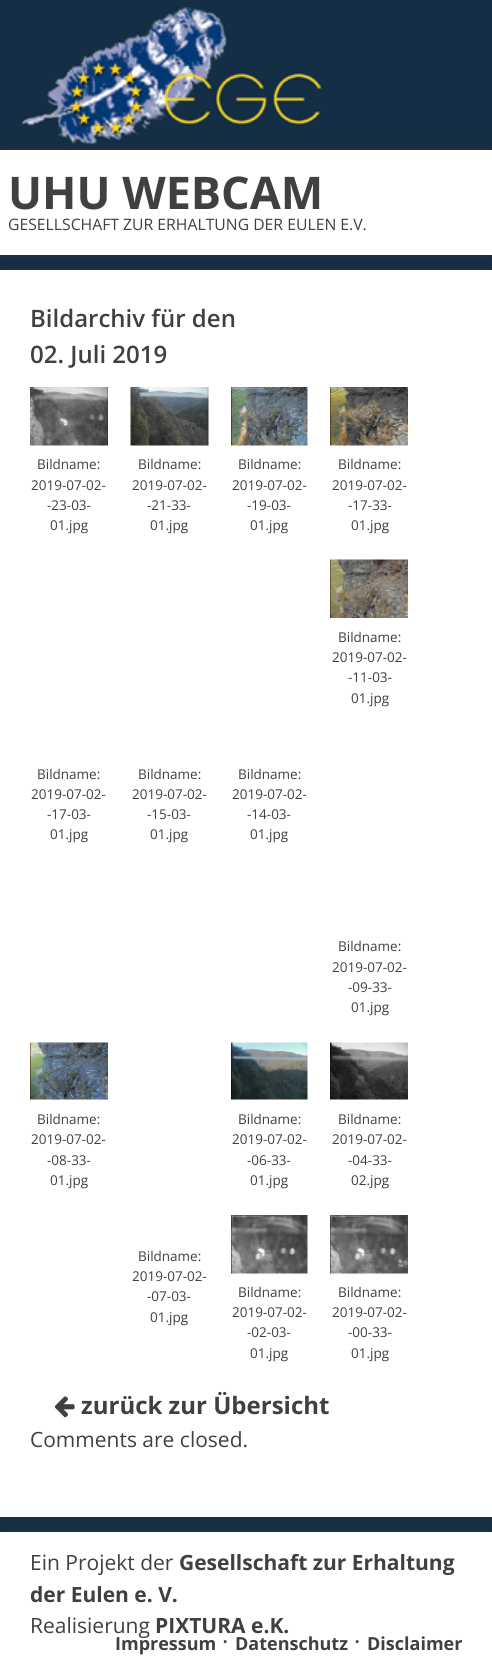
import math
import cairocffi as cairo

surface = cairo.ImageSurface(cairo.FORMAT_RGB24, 492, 1664)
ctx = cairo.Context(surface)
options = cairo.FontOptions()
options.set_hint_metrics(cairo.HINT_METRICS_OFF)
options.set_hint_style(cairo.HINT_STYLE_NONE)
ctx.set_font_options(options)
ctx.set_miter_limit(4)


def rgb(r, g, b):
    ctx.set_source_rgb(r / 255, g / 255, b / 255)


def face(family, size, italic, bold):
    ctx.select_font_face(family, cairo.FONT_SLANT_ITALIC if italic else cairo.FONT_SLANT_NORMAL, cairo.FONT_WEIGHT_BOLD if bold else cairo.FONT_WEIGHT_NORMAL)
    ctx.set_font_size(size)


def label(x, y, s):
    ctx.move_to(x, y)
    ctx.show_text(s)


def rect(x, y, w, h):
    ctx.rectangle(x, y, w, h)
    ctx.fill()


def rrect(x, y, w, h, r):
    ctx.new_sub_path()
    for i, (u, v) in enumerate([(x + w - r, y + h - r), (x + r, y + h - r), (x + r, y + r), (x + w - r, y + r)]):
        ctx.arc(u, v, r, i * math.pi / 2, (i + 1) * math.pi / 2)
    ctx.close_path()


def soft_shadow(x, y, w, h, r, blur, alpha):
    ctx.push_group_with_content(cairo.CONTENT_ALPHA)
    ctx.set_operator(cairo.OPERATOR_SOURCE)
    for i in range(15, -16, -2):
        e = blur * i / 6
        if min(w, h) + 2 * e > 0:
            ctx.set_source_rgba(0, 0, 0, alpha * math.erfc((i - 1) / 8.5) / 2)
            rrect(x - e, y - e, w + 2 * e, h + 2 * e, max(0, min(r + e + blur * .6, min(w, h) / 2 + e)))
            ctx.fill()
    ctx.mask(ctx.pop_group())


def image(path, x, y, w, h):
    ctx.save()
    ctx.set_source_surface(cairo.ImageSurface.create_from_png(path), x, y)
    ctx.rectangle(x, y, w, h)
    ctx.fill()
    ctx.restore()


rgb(20, 46, 69)
ctx.paint()
rgb(50, 50, 50)
soft_shadow(0, 150, 492, 105, 0, 4, 0.75)
rgb(255, 255, 255)
rect(0, 150, 492, 105)
image('image0.png', 21, 7, 302, 138)
face('Open Sans', 45, 0, 1)
rgb(64, 64, 64)
label(8, 209, 'UHU WEBCAM')
face('Open Sans', 15.75, 0, 0)
label(8, 230, 'GESELLSCHAFT ZUR ERHALTUNG DER EULEN E.V.')
rgb(50, 50, 50)
soft_shadow(0, 270, 492, 1247, 0, 4, 0.75)
rgb(255, 255, 255)
rect(0, 270, 492, 1247)
face('Open Sans SemiBold', 24, 0, 0)
rgb(64, 64, 64)
label(30, 327, 'Bildarchiv für den')
label(30, 363, '02. Juli 2019')
image('image1.png', 30, 387, 78, 59)
face('Open Sans', 13.5, 0, 0)
label(37, 469, 'Bildname:')
label(31, 490, '2019-07-02-')
label(47, 510, '-23-03-')
label(50, 530, '01.jpg')
image('image2.png', 130, 387, 79, 59)
label(138, 469, 'Bildname:')
label(132, 490, '2019-07-02-')
label(147, 510, '-21-33-')
label(150, 530, '01.jpg')
image('image3.png', 231, 387, 77, 59)
label(238, 469, 'Bildname:')
label(232, 490, '2019-07-02-')
label(247, 510, '-19-03-')
label(250, 530, '01.jpg')
image('image4.png', 330, 387, 78, 59)
label(338, 469, 'Bildname:')
label(332, 490, '2019-07-02-')
label(348, 510, '-17-33-')
label(351, 530, '01.jpg')
image('image5.png', 330, 559, 78, 59)
label(338, 642, 'Bildname:')
label(332, 662, '2019-07-02-')
label(348, 682, '-11-03-')
label(351, 703, '01.jpg')
label(37, 779, 'Bildname:')
label(31, 799, '2019-07-02-')
label(47, 819, '-17-03-')
label(50, 839, '01.jpg')
label(138, 779, 'Bildname:')
label(132, 799, '2019-07-02-')
label(147, 819, '-15-03-')
label(150, 839, '01.jpg')
label(238, 779, 'Bildname:')
label(232, 799, '2019-07-02-')
label(247, 819, '-14-03-')
label(250, 839, '01.jpg')
label(338, 951, 'Bildname:')
label(332, 972, '2019-07-02-')
label(348, 992, '-09-33-')
label(351, 1012, '01.jpg')
image('image6.png', 30, 1042, 78, 58)
label(37, 1124, 'Bildname:')
label(31, 1144, '2019-07-02-')
label(47, 1165, '-08-33-')
label(50, 1185, '01.jpg')
image('image7.png', 231, 1042, 77, 58)
label(238, 1124, 'Bildname:')
label(232, 1144, '2019-07-02-')
label(247, 1165, '-06-33-')
label(250, 1185, '01.jpg')
image('image8.png', 330, 1042, 78, 58)
label(338, 1124, 'Bildname:')
label(332, 1144, '2019-07-02-')
label(348, 1165, '-04-33-')
label(351, 1185, '02.jpg')
label(138, 1261, 'Bildname:')
label(132, 1281, '2019-07-02-')
label(147, 1301, '-07-03-')
label(150, 1322, '01.jpg')
image('image9.png', 231, 1215, 77, 59)
label(238, 1297, 'Bildname:')
label(232, 1317, '2019-07-02-')
label(247, 1337, '-02-03-')
label(250, 1358, '01.jpg')
image('image10.png', 330, 1215, 78, 59)
label(338, 1297, 'Bildname:')
label(332, 1317, '2019-07-02-')
label(348, 1337, '-00-33-')
label(351, 1358, '01.jpg')
image('image11.png', 54, 1396, 21, 22)
face('Open Sans', 24, 0, 1)
label(81, 1414, 'zurück zur Übersicht')
face('Open Sans', 21, 0, 0)
label(30, 1447, 'Comments are closed.')
rgb(50, 50, 50)
soft_shadow(0, 1532, 492, 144, 0, 4, 0.75)
rgb(255, 255, 255)
rect(0, 1532, 492, 132)
rgb(64, 64, 64)
label(30, 1570, 'Ein Projekt der')
face('Open Sans', 21, 0, 1)
label(179, 1570, 'Gesellschaft zur Erhaltung')
label(30, 1602, 'der Eulen e. V.')
face('Open Sans', 21, 0, 0)
label(30, 1633, 'Realisierung')
face('Open Sans', 21, 0, 1)
label(155, 1633, 'PIXTURA e.K.')
face('Open Sans', 18, 0, 1)
label(115, 1650, 'Impressum')
face('Open Sans', 24, 0, 0)
label(222, 1650, '·')
face('Open Sans', 18, 0, 1)
label(235, 1650, 'Datenschutz')
face('Open Sans', 24, 0, 0)
label(354, 1650, '·')
face('Open Sans', 18, 0, 1)
label(367, 1650, 'Disclaimer')
surface.write_to_png('render.png')
